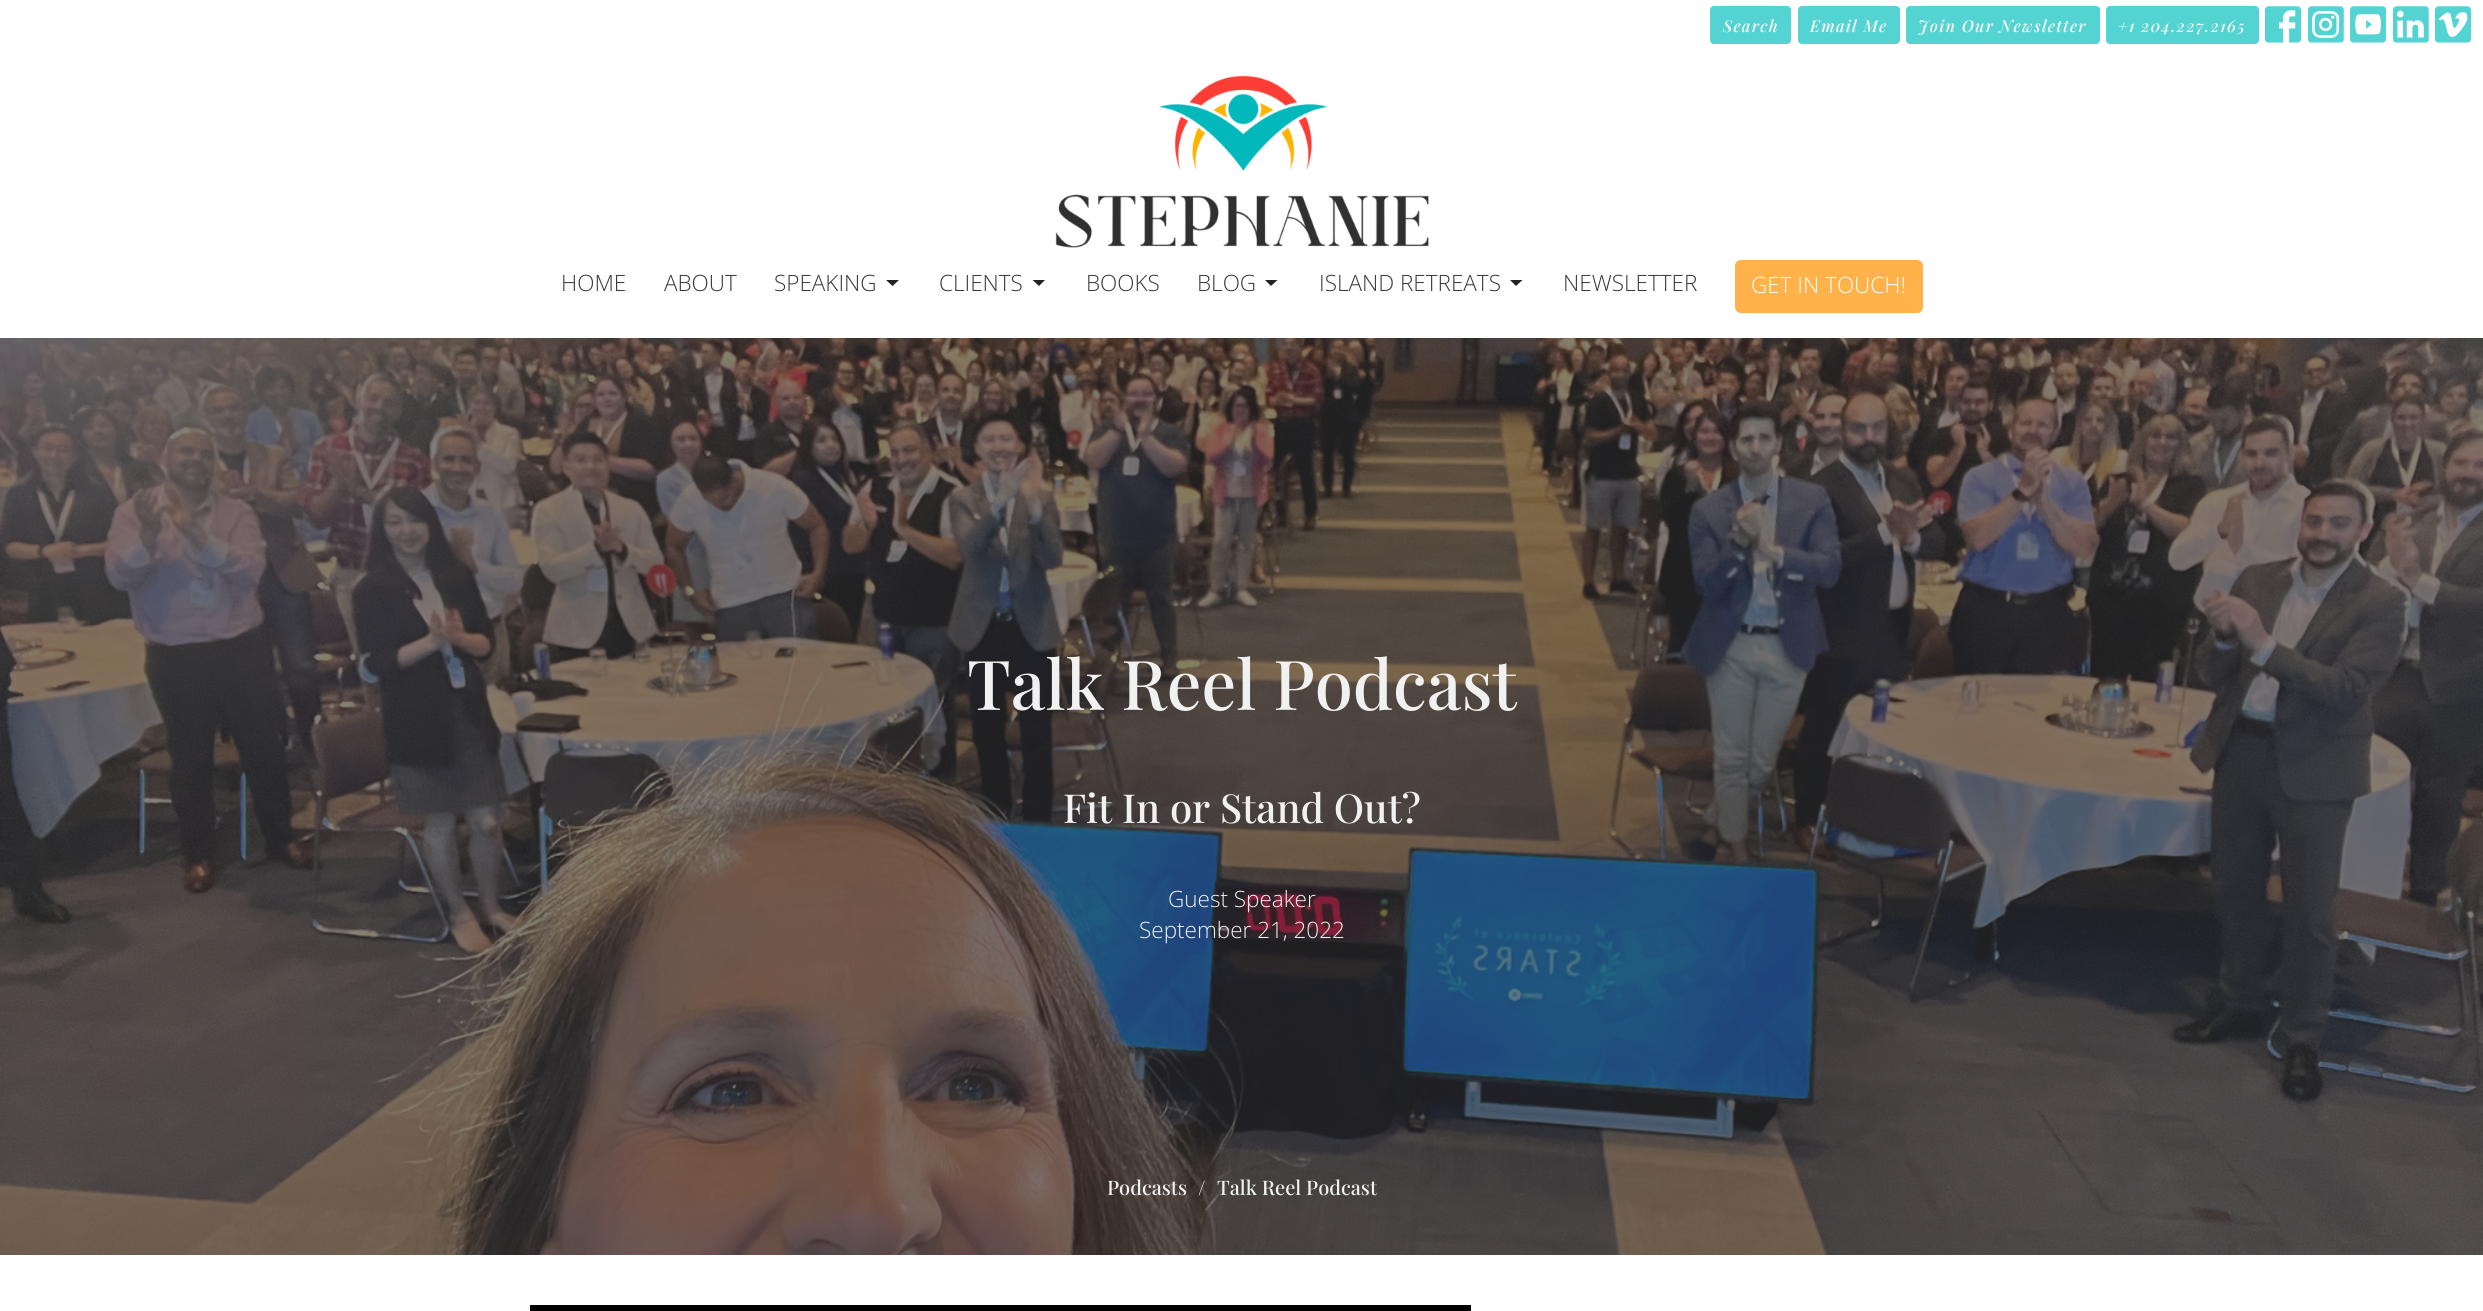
import math
import cairocffi as cairo

surface = cairo.ImageSurface(cairo.FORMAT_RGB24, 2483, 1311)
ctx = cairo.Context(surface)
options = cairo.FontOptions()
options.set_hint_metrics(cairo.HINT_METRICS_OFF)
options.set_hint_style(cairo.HINT_STYLE_NONE)
ctx.set_font_options(options)
ctx.set_miter_limit(4)


def rgb(r, g, b):
    ctx.set_source_rgb(r / 255, g / 255, b / 255)


def face(family, size, italic, bold):
    ctx.select_font_face(family, cairo.FONT_SLANT_ITALIC if italic else cairo.FONT_SLANT_NORMAL, cairo.FONT_WEIGHT_BOLD if bold else cairo.FONT_WEIGHT_NORMAL)
    ctx.set_font_size(size)


def label(x, y, s):
    ctx.move_to(x, y)
    ctx.show_text(s)


def tracked(x, y, s, letter, word):
    ctx.move_to(x, y)
    for ch in s:
        ctx.show_text(ch)
        ctx.rel_move_to(letter + word * (ch == ' '), 0)


def rect(x, y, w, h):
    ctx.rectangle(x, y, w, h)
    ctx.fill()


def rrect(x, y, w, h, r):
    ctx.new_sub_path()
    for i, (u, v) in enumerate([(x + w - r, y + h - r), (x + r, y + h - r), (x + r, y + r), (x + w - r, y + r)]):
        ctx.arc(u, v, r, i * math.pi / 2, (i + 1) * math.pi / 2)
    ctx.close_path()


def image(path, x, y, w, h):
    ctx.save()
    ctx.set_source_surface(cairo.ImageSurface.create_from_png(path), x, y)
    ctx.rectangle(x, y, w, h)
    ctx.fill()
    ctx.restore()


rgb(255, 255, 255)
ctx.paint()
rgb(83, 211, 209)
rrect(1710, 6, 81, 38, 4)
ctx.fill()
face('Playfair Display Medium', 16.25, 1, 0)
rgb(255, 255, 255)
tracked(1723, 32, 'Search', 1.25, 0)
rgb(83, 211, 209)
rrect(1798, 6, 102, 38, 4)
ctx.fill()
rgb(255, 255, 255)
tracked(1810, 32, 'Email Me', 1.25, 0)
rgb(83, 211, 209)
rrect(1906, 6, 194, 38, 4)
ctx.fill()
rgb(255, 255, 255)
tracked(1918, 32, 'Join Our Newsletter', 1.25, 0)
rgb(83, 211, 209)
rrect(2106, 6, 153, 38, 4)
ctx.fill()
rgb(255, 255, 255)
tracked(2118, 32, '+1 204.227.2165', 1.25, 0)
image('image0.png', 2265, 6, 36, 37)
image('image1.png', 2308, 6, 36, 37)
image('image2.png', 2350, 6, 36, 37)
image('image3.png', 2393, 6, 36, 37)
image('image4.png', 2435, 6, 36, 37)
image('image5.png', 1055, 75, 374, 173)
face('Open Sans Light', 22.5, 0, 0)
rgb(56, 56, 56)
label(561, 291, 'HOME')
label(664, 291, 'ABOUT')
label(774, 291, 'SPEAKING')
rgb(34, 34, 34)
ctx.new_path()
ctx.move_to(886, 280)
ctx.line_to(892.5, 286)
ctx.line_to(899, 280)
ctx.close_path()
ctx.fill()
rgb(56, 56, 56)
label(939, 291, 'CLIENTS')
rgb(34, 34, 34)
ctx.new_path()
ctx.move_to(1032.5, 280)
ctx.line_to(1039, 286)
ctx.line_to(1045, 280)
ctx.close_path()
ctx.fill()
rgb(56, 56, 56)
label(1086, 291, 'BOOKS')
label(1197, 291, 'BLOG')
rgb(34, 34, 34)
ctx.new_path()
ctx.move_to(1265, 280)
ctx.line_to(1271, 286)
ctx.line_to(1277.5, 280)
ctx.close_path()
ctx.fill()
rgb(56, 56, 56)
label(1319, 291, 'ISLAND RETREATS')
rgb(34, 34, 34)
ctx.new_path()
ctx.move_to(1510, 280)
ctx.line_to(1516, 286)
ctx.line_to(1522.5, 280)
ctx.close_path()
ctx.fill()
rgb(56, 56, 56)
label(1563, 291, 'NEWSLETTER')
rgb(254, 178, 73)
rrect(1735, 260, 188, 53, 6)
ctx.fill()
rgb(255, 255, 255)
label(1751, 293, 'GET IN TOUCH!')
image('image6.png', 0, 338, 2483, 917)
face('Playfair Display Medium', 68.75, 0, 0)
rgb(241, 241, 241)
label(967, 710, 'Talk Reel Podcast')
face('Playfair Display Medium', 40, 0, 0)
label(1063, 823, 'Fit In or Stand Out?')
face('Open Sans Light', 22.5, 0, 0)
label(1168, 907, 'Guest Speaker')
label(1139, 938, 'September 21, 2022')
face('Playfair Display Medium', 20, 0, 0)
label(1107, 1195, 'Podcasts')
label(1198, 1195, '/')
label(1217, 1195, 'Talk Reel Podcast')
rgb(0, 0, 0)
rect(530, 1305, 941, 6)
surface.write_to_png('render.png')
